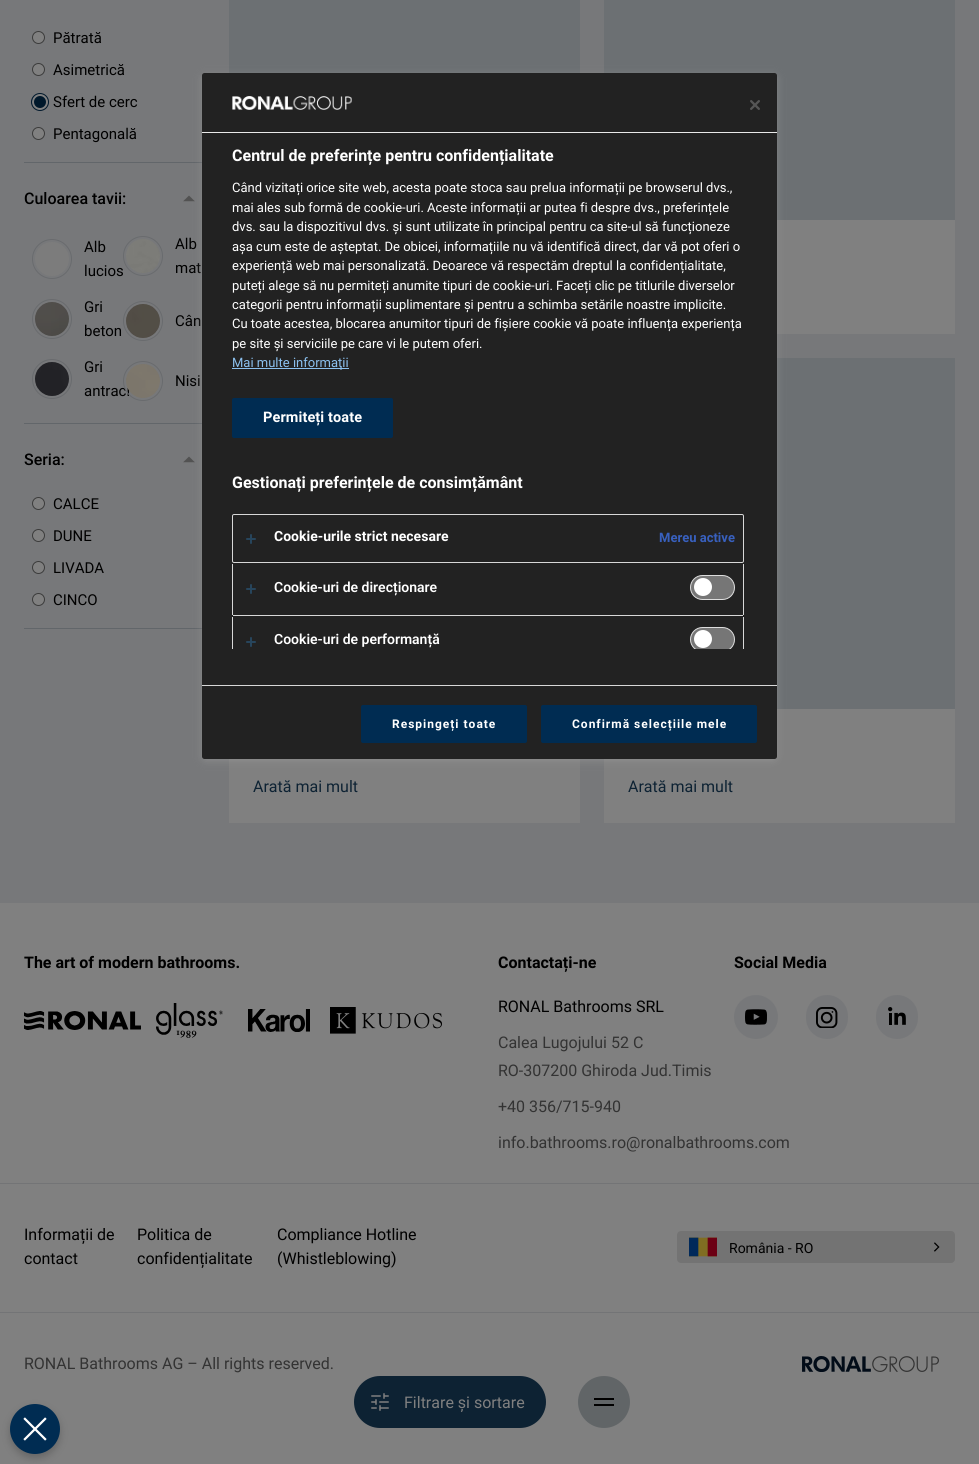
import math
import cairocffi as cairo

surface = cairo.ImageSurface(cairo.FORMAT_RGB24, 979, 1464)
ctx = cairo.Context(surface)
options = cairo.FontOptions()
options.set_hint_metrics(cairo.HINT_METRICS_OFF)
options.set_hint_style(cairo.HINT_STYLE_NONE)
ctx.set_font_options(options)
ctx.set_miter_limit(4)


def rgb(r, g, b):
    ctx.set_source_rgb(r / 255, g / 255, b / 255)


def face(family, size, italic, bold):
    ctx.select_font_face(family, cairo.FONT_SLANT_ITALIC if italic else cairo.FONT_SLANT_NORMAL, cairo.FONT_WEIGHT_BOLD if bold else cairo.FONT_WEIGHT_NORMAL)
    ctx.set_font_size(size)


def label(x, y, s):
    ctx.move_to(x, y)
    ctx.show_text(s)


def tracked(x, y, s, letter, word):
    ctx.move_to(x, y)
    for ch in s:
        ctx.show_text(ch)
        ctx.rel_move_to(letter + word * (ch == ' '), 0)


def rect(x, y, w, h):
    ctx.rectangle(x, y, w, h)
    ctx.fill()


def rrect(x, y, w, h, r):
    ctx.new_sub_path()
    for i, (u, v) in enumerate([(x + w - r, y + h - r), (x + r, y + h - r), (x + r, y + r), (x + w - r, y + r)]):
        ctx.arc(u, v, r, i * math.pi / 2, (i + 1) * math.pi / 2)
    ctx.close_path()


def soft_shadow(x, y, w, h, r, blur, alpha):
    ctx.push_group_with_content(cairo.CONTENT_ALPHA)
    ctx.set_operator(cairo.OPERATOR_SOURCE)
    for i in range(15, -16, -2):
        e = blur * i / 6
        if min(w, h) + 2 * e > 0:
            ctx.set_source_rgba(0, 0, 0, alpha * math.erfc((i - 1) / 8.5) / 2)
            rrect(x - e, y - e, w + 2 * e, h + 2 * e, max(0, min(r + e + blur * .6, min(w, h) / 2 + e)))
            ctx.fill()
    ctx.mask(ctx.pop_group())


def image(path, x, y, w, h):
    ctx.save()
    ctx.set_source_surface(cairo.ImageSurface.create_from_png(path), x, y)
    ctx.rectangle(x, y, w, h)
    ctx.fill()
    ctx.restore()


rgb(119, 120, 122)
ctx.paint()
rgb(98, 102, 106)
rect(24, 162, 181, 1)
rgb(128, 128, 128)
ctx.arc(38.5, 37.5, 6, 0, 2 * math.pi)
ctx.fill_preserve()
rgb(59, 59, 59)
ctx.set_line_width(1)
ctx.stroke()
face('Roboto', 15, 0, 0)
rgb(0, 0, 0)
label(53, 43, 'Pătrată')
rgb(128, 128, 128)
ctx.new_path()
ctx.arc(38.5, 69.5, 6, 0, 2 * math.pi)
ctx.fill_preserve()
rgb(59, 59, 59)
ctx.stroke()
rgb(0, 0, 0)
label(53, 75, 'Asimetrică')
ctx.new_path()
ctx.arc(38.5, 101.5, 6, 0, 2 * math.pi)
rgb(0, 59, 128)
ctx.stroke()
rgb(0, 24, 43)
ctx.arc(40, 102, 7, 0, 2 * math.pi)
ctx.fill_preserve()
rgb(128, 128, 128)
ctx.set_line_width(2)
ctx.stroke()
ctx.arc(40, 102, 8.5, 0, 2 * math.pi)
rgb(0, 24, 43)
ctx.set_line_width(1)
ctx.stroke()
rgb(0, 0, 0)
label(53, 107, 'Sfert de cerc')
rgb(128, 128, 128)
ctx.new_path()
ctx.arc(38.5, 133.5, 6, 0, 2 * math.pi)
ctx.fill_preserve()
rgb(59, 59, 59)
ctx.stroke()
rgb(0, 0, 0)
label(53, 139, 'Pentagonală')
rgb(98, 102, 106)
rect(24, 423, 181, 1)
face('Roboto Medium', 16, 0, 0)
rgb(0, 0, 0)
label(24, 204, 'Culoarea tavii:')
image('image0.png', 183, 195, 12, 7)
ctx.arc(52, 259, 19.5, 0, 2 * math.pi)
rgb(105, 107, 110)
ctx.stroke()
image('image1.png', 35, 242, 34, 34)
face('Roboto', 15, 0, 0)
rgb(0, 0, 0)
label(84, 252, 'Alb')
label(84, 276, 'lucios')
ctx.new_path()
ctx.arc(143, 256, 19.5, 0, 2 * math.pi)
rgb(105, 107, 110)
ctx.stroke()
image('image2.png', 126, 239, 34, 34)
rgb(0, 0, 0)
label(175, 249, 'Alb')
label(175, 273, 'mat')
ctx.new_path()
ctx.arc(52, 319, 19.5, 0, 2 * math.pi)
rgb(105, 107, 110)
ctx.stroke()
image('image3.png', 35, 302, 34, 34)
rgb(0, 0, 0)
label(84, 312, 'Gri')
label(84, 336, 'beton')
ctx.new_path()
ctx.arc(143, 321, 19.5, 0, 2 * math.pi)
rgb(105, 107, 110)
ctx.stroke()
image('image4.png', 126, 304, 34, 34)
rgb(0, 0, 0)
label(175, 326, 'Cân')
ctx.new_path()
ctx.arc(52, 379, 19.5, 0, 2 * math.pi)
rgb(105, 107, 110)
ctx.stroke()
image('image5.png', 35, 362, 34, 34)
rgb(0, 0, 0)
label(84, 372, 'Gri')
label(84, 396, 'antraci')
ctx.new_path()
ctx.arc(143, 381, 19.5, 0, 2 * math.pi)
rgb(105, 107, 110)
ctx.stroke()
image('image6.png', 126, 364, 34, 34)
rgb(0, 0, 0)
label(175, 386, 'Nisi')
rgb(98, 102, 106)
rect(24, 628, 181, 1)
face('Roboto Medium', 16, 0, 0)
rgb(0, 0, 0)
label(24, 465, 'Seria:')
image('image0.png', 183, 456, 12, 7)
rgb(128, 128, 128)
ctx.arc(38.5, 503.5, 6, 0, 2 * math.pi)
ctx.fill_preserve()
rgb(59, 59, 59)
ctx.stroke()
face('Roboto', 15, 0, 0)
rgb(0, 0, 0)
label(53, 509, 'CALCE')
rgb(128, 128, 128)
ctx.new_path()
ctx.arc(38.5, 535.5, 6, 0, 2 * math.pi)
ctx.fill_preserve()
rgb(59, 59, 59)
ctx.stroke()
rgb(0, 0, 0)
label(53, 541, 'DUNE')
rgb(128, 128, 128)
ctx.new_path()
ctx.arc(38.5, 567.5, 6, 0, 2 * math.pi)
ctx.fill_preserve()
rgb(59, 59, 59)
ctx.stroke()
rgb(0, 0, 0)
label(53, 573, 'LIVADA')
rgb(128, 128, 128)
ctx.new_path()
ctx.arc(38.5, 599.5, 6, 0, 2 * math.pi)
ctx.fill_preserve()
rgb(59, 59, 59)
ctx.stroke()
rgb(0, 0, 0)
label(53, 605, 'CINCO')
rgb(108, 112, 115)
rect(229, 0, 351, 73)
rgb(128, 128, 128)
rect(777, 220, 178, 114)
rgb(108, 112, 115)
rect(604, 0, 351, 220)
rgb(128, 128, 128)
rect(229, 759, 351, 64)
face('Roboto', 16, 0, 0)
rgb(13, 34, 51)
label(253, 792, 'Arată mai mult')
rgb(128, 128, 128)
rect(604, 709, 351, 114)
rgb(108, 112, 115)
rect(777, 358, 178, 351)
rgb(13, 34, 51)
label(628, 792, 'Arată mai mult')
rgb(128, 128, 128)
rect(0, 903, 979, 561)
face('Roboto', 16, 0, 1)
rgb(0, 0, 0)
label(24, 968, 'The art of modern bathrooms.')
image('image7.png', 24, 1011, 117, 19)
image('image8.png', 156, 1003, 67, 35)
image('image9.png', 248, 1009, 62, 23)
image('image10.png', 330, 1007, 112, 27)
label(498, 968, 'Contactați-ne')
face('Roboto', 16, 0, 0)
label(498, 1012, 'RONAL Bathrooms SRL')
rgb(51, 51, 51)
label(498, 1048, 'Calea Lugojului 52 C')
label(498, 1076, 'RO-307200 Ghiroda Jud.Timis')
label(498, 1112, '+40 356/715-940')
label(498, 1148, 'info.bathrooms.ro@ronalbathrooms.com')
face('Roboto', 16, 0, 1)
rgb(0, 0, 0)
label(734, 968, 'Social Media')
rgb(119, 120, 122)
ctx.new_path()
ctx.arc(756, 1017, 22, 0, 2 * math.pi)
ctx.fill()
image('image11.png', 745, 1009, 22, 16)
rrect(806, 995, 42, 44, 21)
ctx.fill()
image('image12.png', 816, 1007, 22, 21)
rrect(876, 995, 42, 44, 21)
ctx.fill()
image('image13.png', 888, 1007, 18, 18)
rgb(115, 116, 118)
rect(0, 1183, 979, 1)
face('Roboto', 16, 0, 0)
rgb(0, 0, 0)
label(24, 1240, 'Informații de')
label(24, 1264, 'contact')
label(137, 1240, 'Politica de')
label(137, 1264, 'confidențialitate')
label(277, 1240, 'Compliance Hotline')
label(277, 1264, '(Whistleblowing)')
rgb(115, 115, 115)
rrect(677, 1231, 278, 32, 4)
ctx.fill()
image('image14.png', 689, 1237, 28, 20)
face('Roboto', 14, 0, 0)
rgb(0, 0, 0)
label(729, 1253, 'România - RO')
image('image15.png', 934, 1242, 6, 10)
rgb(115, 116, 118)
rect(0, 1312, 979, 1)
face('Roboto', 16, 0, 0)
rgb(51, 51, 51)
label(24, 1369, 'RONAL Bathrooms AG – All rights reserved.')
image('image16.png', 802, 1356, 137, 16)
rgb(153, 153, 153)
soft_shadow(205, 78, 569, 680, 0, 5, 1)
rgb(34, 34, 34)
rrect(202, 73, 575, 686, 2.5)
ctx.fill()
rgb(233, 233, 233)
rect(202, 132, 575, 1)
image('image17.png', 232, 96, 120, 14)
image('image18.png', 750, 100, 10, 10)
face('Roboto', 16, 0, 1)
rgb(255, 255, 255)
label(232, 161, 'Centrul de preferințe pentru confidențialitate')
face('Roboto', 13, 0, 0)
label(232, 192, 'Când vizitați orice site web, acesta poate stoca sau prelua informații pe browserul dvs.,')
label(232, 212, 'mai ales sub formă de cookie-uri. Aceste informații ar putea fi despre dvs., preferințele')
label(232, 231, 'dvs. sau la dispozitivul dvs. și sunt utilizate în principal pentru ca site-ul să funcționeze')
label(232, 251, 'așa cum este de așteptat. De obicei, informațiile nu vă identifică direct, dar vă pot oferi o')
label(232, 270, 'experiență web mai personalizată. Deoarece vă respectăm dreptul la confidențialitate,')
label(232, 290, 'puteți alege să nu permiteți anumite tipuri de cookie-uri. Faceți clic pe titlurile diverselor')
label(232, 309, 'categorii pentru informații suplimentare și pentru a schimba setările noastre implicite.')
label(232, 328, 'Cu toate acestea, blocarea anumitor tipuri de fișiere cookie vă poate influența experiența')
label(232, 348, 'pe site și serviciile pe care vi le putem oferi.')
rgb(139, 192, 238)
rect(232, 368, 117, 1)
label(232, 367, 'Mai multe informaţii')
rgb(0, 44, 82)
rrect(232.5, 398.5, 160, 39, 1.5)
ctx.fill_preserve()
ctx.stroke()
face('Roboto', 14.5, 0, 1)
rgb(255, 255, 255)
tracked(263, 422, 'Permiteți toate', 0.1, 0)
face('Roboto', 16, 0, 1)
label(232, 488, 'Gestionați preferințele de consimțământ')
rrect(232.5, 514.5, 511, 48, 1.5)
rgb(216, 216, 216)
ctx.stroke()
rgb(39, 69, 92)
rrect(250, 534, 2, 10, 1)
ctx.fill()
rrect(246, 538, 10, 2, 1)
ctx.fill()
face('Roboto', 14, 0, 1)
rgb(255, 255, 255)
label(274, 541, 'Cookie-urile strict necesare')
face('Roboto', 13, 0, 1)
rgb(56, 96, 190)
label(659, 542, 'Mereu active')
rgb(216, 216, 216)
rect(743, 564, 1, 51)
rect(233, 615, 510, 1)
rect(232, 564, 1, 51)
rgb(39, 69, 92)
rrect(250, 584, 2, 10, 1)
ctx.fill()
rrect(246, 588, 10, 2, 1)
ctx.fill()
face('Roboto SemiBold', 14, 0, 0)
rgb(255, 255, 255)
label(274, 592, 'Cookie-uri de direcționare')
rgb(118, 118, 118)
rrect(690.5, 575.5, 44, 24, 12)
ctx.fill_preserve()
rgb(221, 221, 221)
ctx.stroke()
rgb(255, 255, 255)
ctx.arc(703, 587, 9, 0, 2 * math.pi)
ctx.fill()
rgb(216, 216, 216)
rect(743, 617, 1, 32)
rect(232, 617, 1, 32)
rgb(39, 69, 92)
rrect(250, 637, 2, 10, 1)
ctx.fill()
rrect(246, 641, 10, 2, 1)
ctx.fill()
rgb(255, 255, 255)
label(274, 644, 'Cookie-uri de performanță')
ctx.save()
ctx.rectangle(232, 134, 542, 515)
ctx.clip()
rgb(118, 118, 118)
rrect(690.5, 627.5, 44, 24, 12)
ctx.fill_preserve()
rgb(221, 221, 221)
ctx.stroke()
ctx.restore()
ctx.arc(703, 639, 9, 0, 2 * math.pi)
ctx.fill()
rgb(216, 216, 216)
rect(202, 685, 575, 1)
rgb(0, 44, 82)
rrect(361.5, 705.5, 165, 37, 1.5)
ctx.fill_preserve()
ctx.stroke()
face('Roboto', 12, 0, 1)
rgb(255, 255, 255)
tracked(392, 728, 'Respingeți toate', 1, 0)
rgb(0, 44, 82)
rrect(541.5, 705.5, 215, 37, 1.5)
ctx.fill_preserve()
ctx.stroke()
rgb(255, 255, 255)
tracked(572, 728, 'Confirmă selecțiile mele', 1, 0)
rgb(0, 0, 0)
soft_shadow(10, 1408, 50, 50, 25, 4, 0.2)
rgb(0, 44, 82)
ctx.arc(35, 1429, 25, 0, 2 * math.pi)
ctx.fill()
image('image19.png', 23, 1417, 24, 24)
rgb(13, 34, 51)
rrect(354, 1376, 192, 52, 26)
ctx.fill()
image('image20.png', 371, 1393, 18, 18)
face('Roboto', 16, 0, 0)
rgb(128, 128, 128)
label(404, 1408, 'Filtrare și sortare')
rgb(97, 101, 103)
ctx.new_path()
ctx.arc(604, 1402, 26, 0, 2 * math.pi)
ctx.fill()
rgb(0, 0, 0)
rect(594, 1398, 20, 2)
rect(594, 1404, 20, 2)
surface.write_to_png('render.png')
